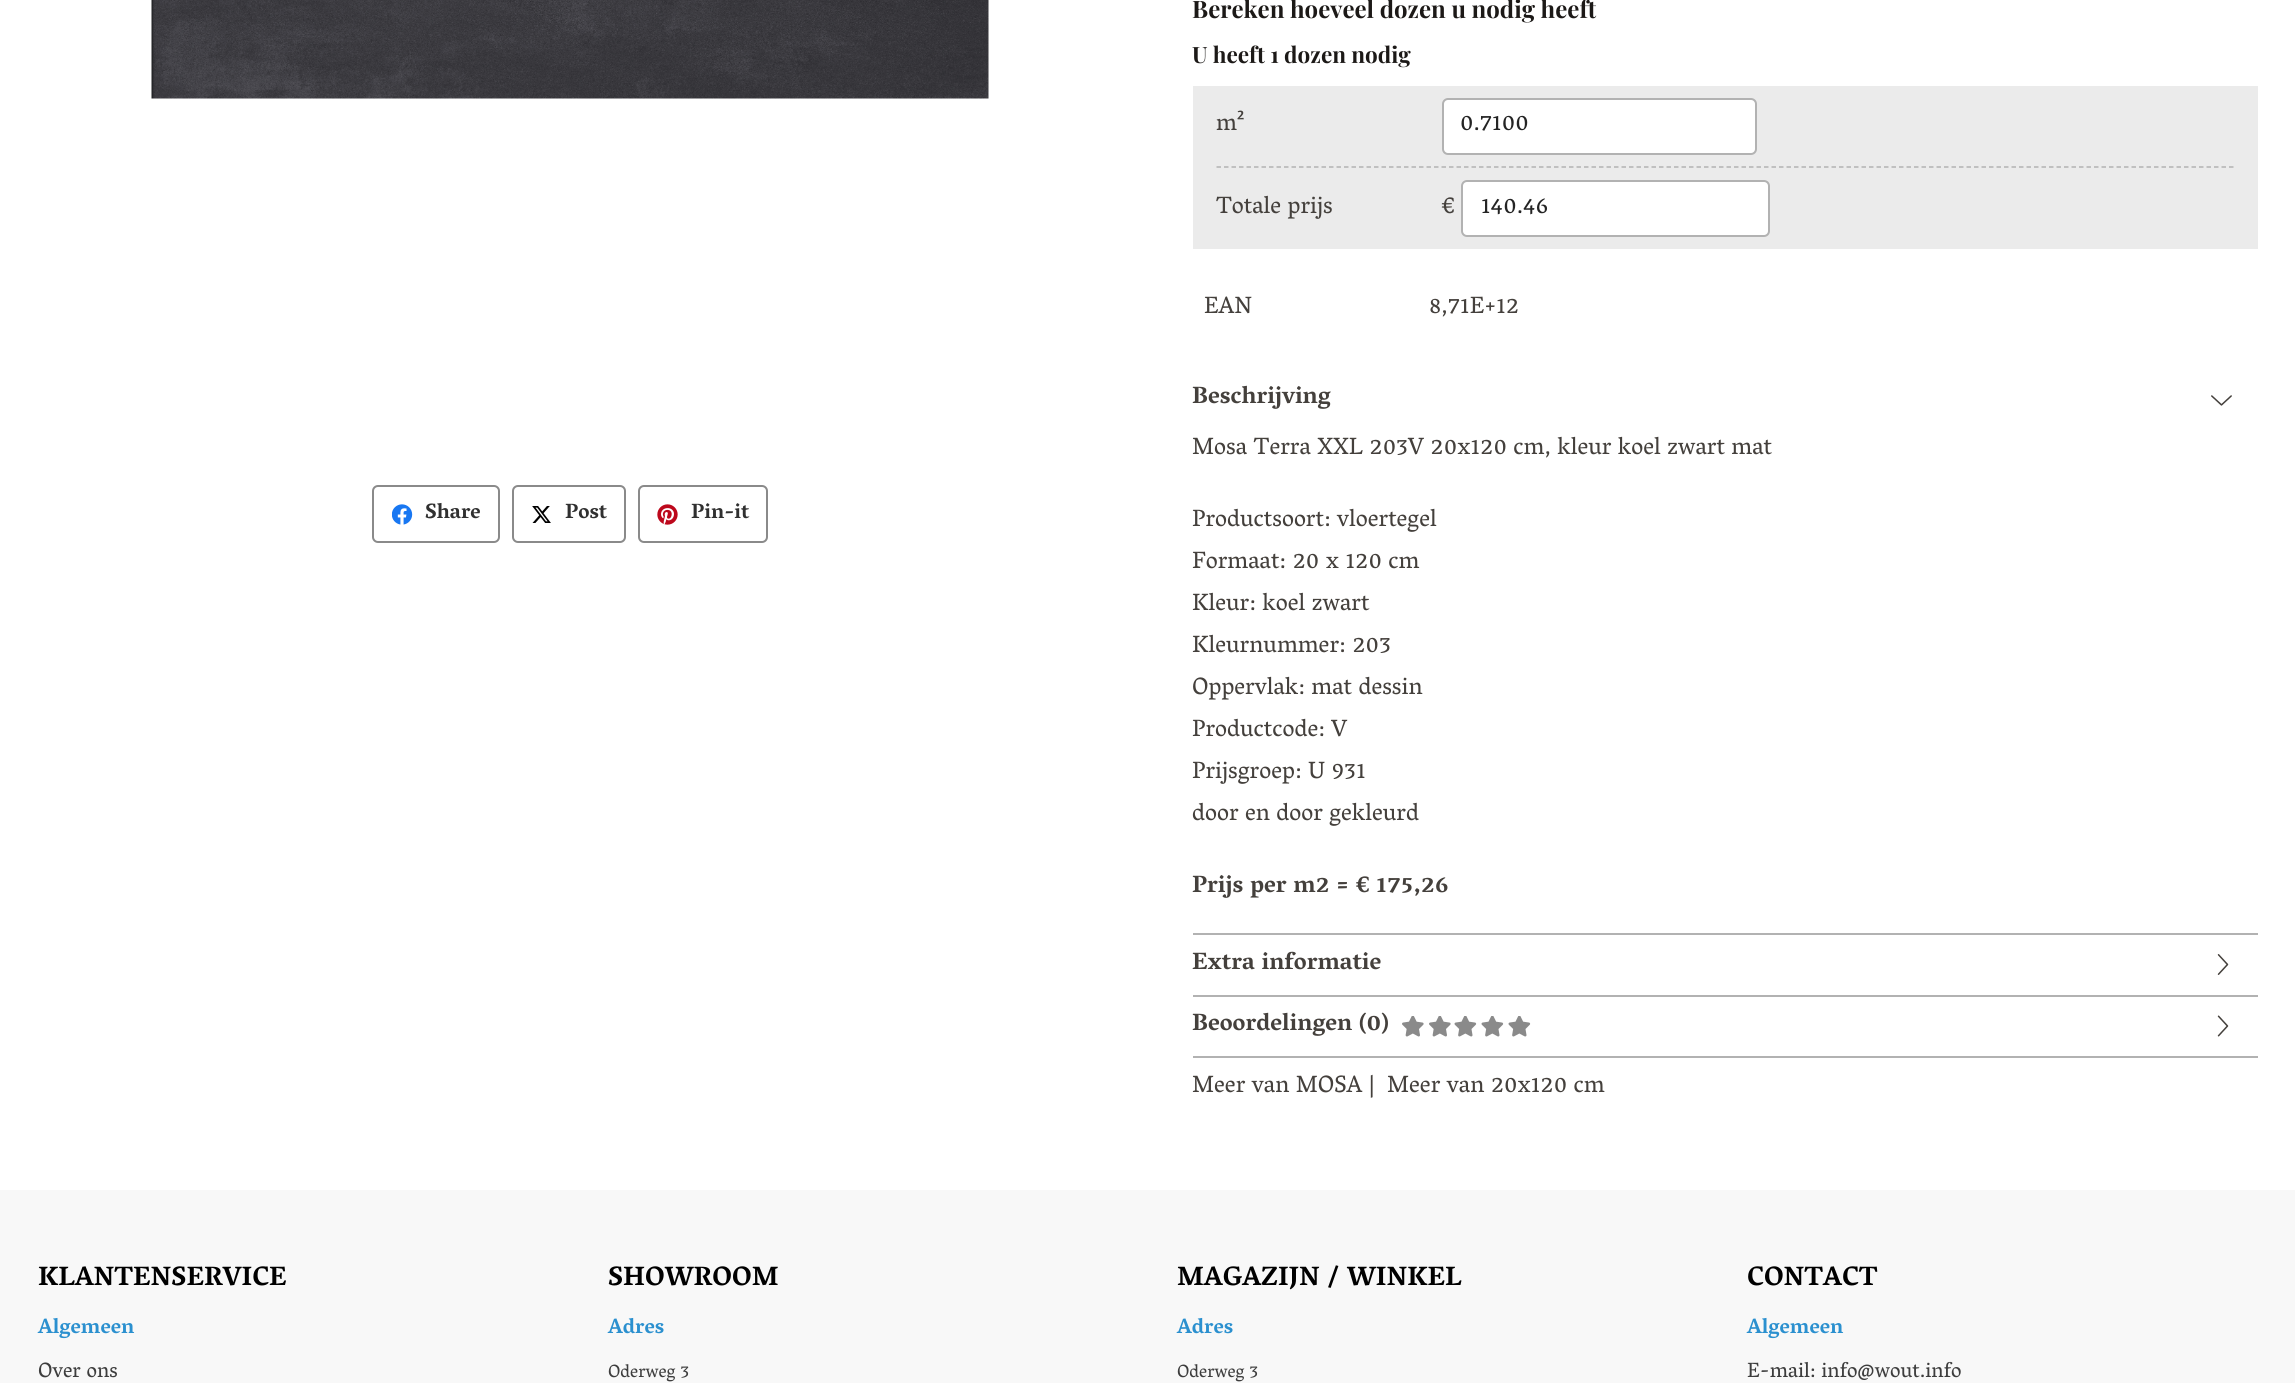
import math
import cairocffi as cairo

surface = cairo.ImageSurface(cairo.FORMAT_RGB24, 2295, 1383)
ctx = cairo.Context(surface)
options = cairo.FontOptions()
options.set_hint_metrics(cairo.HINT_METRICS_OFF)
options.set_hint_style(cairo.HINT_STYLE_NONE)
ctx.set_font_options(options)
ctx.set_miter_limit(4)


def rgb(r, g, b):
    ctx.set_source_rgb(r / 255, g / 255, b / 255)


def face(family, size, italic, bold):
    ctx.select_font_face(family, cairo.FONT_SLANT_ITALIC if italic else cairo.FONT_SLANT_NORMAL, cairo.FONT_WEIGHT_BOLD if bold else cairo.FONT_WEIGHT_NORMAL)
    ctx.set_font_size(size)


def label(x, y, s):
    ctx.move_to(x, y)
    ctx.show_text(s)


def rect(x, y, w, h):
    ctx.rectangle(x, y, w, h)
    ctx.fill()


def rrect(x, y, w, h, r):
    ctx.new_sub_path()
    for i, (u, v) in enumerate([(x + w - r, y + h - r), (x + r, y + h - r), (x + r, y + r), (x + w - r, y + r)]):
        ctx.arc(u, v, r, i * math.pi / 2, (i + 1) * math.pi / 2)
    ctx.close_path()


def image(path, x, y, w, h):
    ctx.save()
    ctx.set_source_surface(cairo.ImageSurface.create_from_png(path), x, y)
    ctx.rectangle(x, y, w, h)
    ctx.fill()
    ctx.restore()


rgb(255, 255, 255)
ctx.paint()
image('image0.png', 151, 0, 838, 99)
rrect(373, 486, 126, 56, 5)
rgb(138, 138, 138)
ctx.stroke()
image('image1.png', 392, 504, 21, 21)
face('Vesper Libre', 21, 0, 1)
rgb(48, 48, 48)
label(425, 518, 'Share')
rrect(513, 486, 112, 56, 5)
rgb(138, 138, 138)
ctx.stroke()
image('image2.png', 532, 506, 19, 17)
rgb(48, 48, 48)
label(565, 518, 'Post')
rrect(639, 486, 128, 56, 5)
rgb(138, 138, 138)
ctx.stroke()
image('image3.png', 657, 504, 21, 21)
rgb(48, 48, 48)
label(691, 518, 'Pin-it')
face('Playfair Display', 24, 0, 1)
rgb(28, 25, 23)
label(1192, 18, 'Bereken hoeveel dozen u nodig heeft')
face('Playfair Display', 22.5, 0, 1)
label(1192, 63, 'U heeft 1 dozen nodig')
rgb(235, 235, 235)
rect(1193, 86, 1065, 163)
face('Vesper Libre', 24, 0, 0)
rgb(68, 64, 60)
label(1216, 130, 'm²')
rgb(255, 255, 255)
rrect(1443, 99, 313, 55, 5)
ctx.fill_preserve()
rgb(178, 178, 178)
ctx.stroke()
rgb(36, 36, 36)
label(1460, 130, '0.7100')
ctx.new_path()
ctx.move_to(1216.5, 167)
ctx.line_to(2233.5, 167)
rgb(178, 178, 178)
ctx.set_line_width(1.5)
ctx.set_dash([4.5, 3])
ctx.stroke()
rgb(68, 64, 60)
label(1216, 213, 'Totale prijs')
label(1441, 213, '€')
rgb(255, 255, 255)
rrect(1462, 181, 307, 55, 5)
ctx.fill_preserve()
rgb(178, 178, 178)
ctx.set_line_width(2)
ctx.set_dash([])
ctx.stroke()
rgb(36, 36, 36)
label(1481, 213, '140.46')
rgb(68, 64, 60)
label(1204, 313, 'EAN')
label(1429, 313, '8,71E+12')
face('Vesper Libre', 24, 0, 1)
label(1192, 403, 'Beschrijving')
image('image4.png', 2211, 395, 21, 11)
rgb(178, 178, 178)
rect(1193, 933, 1065, 2)
face('Vesper Libre', 24, 0, 0)
rgb(68, 64, 60)
label(1192, 454, 'Mosa Terra XXL 203V 20x120 cm, kleur koel zwart mat')
label(1192, 526, 'Productsoort: vloertegel')
label(1192, 568, 'Formaat: 20 x 120 cm')
label(1192, 610, 'Kleur: koel zwart')
label(1192, 652, 'Kleurnummer: 203')
label(1192, 694, 'Oppervlak: mat dessin')
label(1192, 736, 'Productcode: V')
label(1192, 778, 'Prijsgroep: U 931')
label(1192, 820, 'door en door gekleurd')
face('Vesper Libre', 24, 0, 1)
label(1192, 892, 'Prijs per m2 = €')
label(1376, 892, '175,26')
rgb(178, 178, 178)
rect(1193, 995, 1065, 2)
rgb(68, 64, 60)
label(1192, 969, 'Extra informatie')
image('image5.png', 2217, 954, 12, 21)
rgb(178, 178, 178)
rect(1193, 1056, 1065, 2)
rgb(68, 64, 60)
label(1192, 1030, 'Beoordelingen (0)')
image('image6.png', 1402, 1016, 22, 21)
image('image6.png', 1429, 1016, 22, 21)
image('image7.png', 1454, 1016, 23, 21)
image('image7.png', 1481, 1016, 23, 21)
image('image7.png', 1508, 1016, 23, 21)
image('image8.png', 2217, 1015, 12, 22)
face('Vesper Libre', 24, 0, 0)
label(1192, 1092, 'Meer van MOSA |')
label(1387, 1092, 'Meer van 20x120 cm')
rgb(248, 248, 248)
rect(0, 1190, 2295, 193)
face('Vesper Libre', 27, 0, 1)
rgb(0, 0, 0)
label(38, 1285, 'KLANTENSERVICE')
face('Vesper Libre', 21, 0, 1)
rgb(43, 144, 207)
label(38, 1333, 'Algemeen')
face('Vesper Libre', 21, 0, 0)
rgb(61, 61, 61)
label(38, 1377, 'Over ons')
face('Vesper Libre', 27, 0, 1)
rgb(0, 0, 0)
label(608, 1285, 'SHOWROOM')
face('Vesper Libre', 21, 0, 1)
rgb(43, 144, 207)
label(608, 1333, 'Adres')
face('Vesper Libre', 18, 0, 0)
rgb(61, 61, 61)
label(608, 1377, 'Oderweg 3')
face('Vesper Libre', 27, 0, 1)
rgb(0, 0, 0)
label(1177, 1285, 'MAGAZIJN / WINKEL')
face('Vesper Libre', 21, 0, 1)
rgb(43, 144, 207)
label(1177, 1333, 'Adres')
face('Vesper Libre', 18, 0, 0)
rgb(61, 61, 61)
label(1177, 1377, 'Oderweg 3')
face('Vesper Libre', 27, 0, 1)
rgb(0, 0, 0)
label(1747, 1285, 'CONTACT')
face('Vesper Libre', 21, 0, 1)
rgb(43, 144, 207)
label(1747, 1333, 'Algemeen')
face('Vesper Libre', 21, 0, 0)
rgb(61, 61, 61)
label(1747, 1377, 'E-mail: info@wout.info')
surface.write_to_png('render.png')
